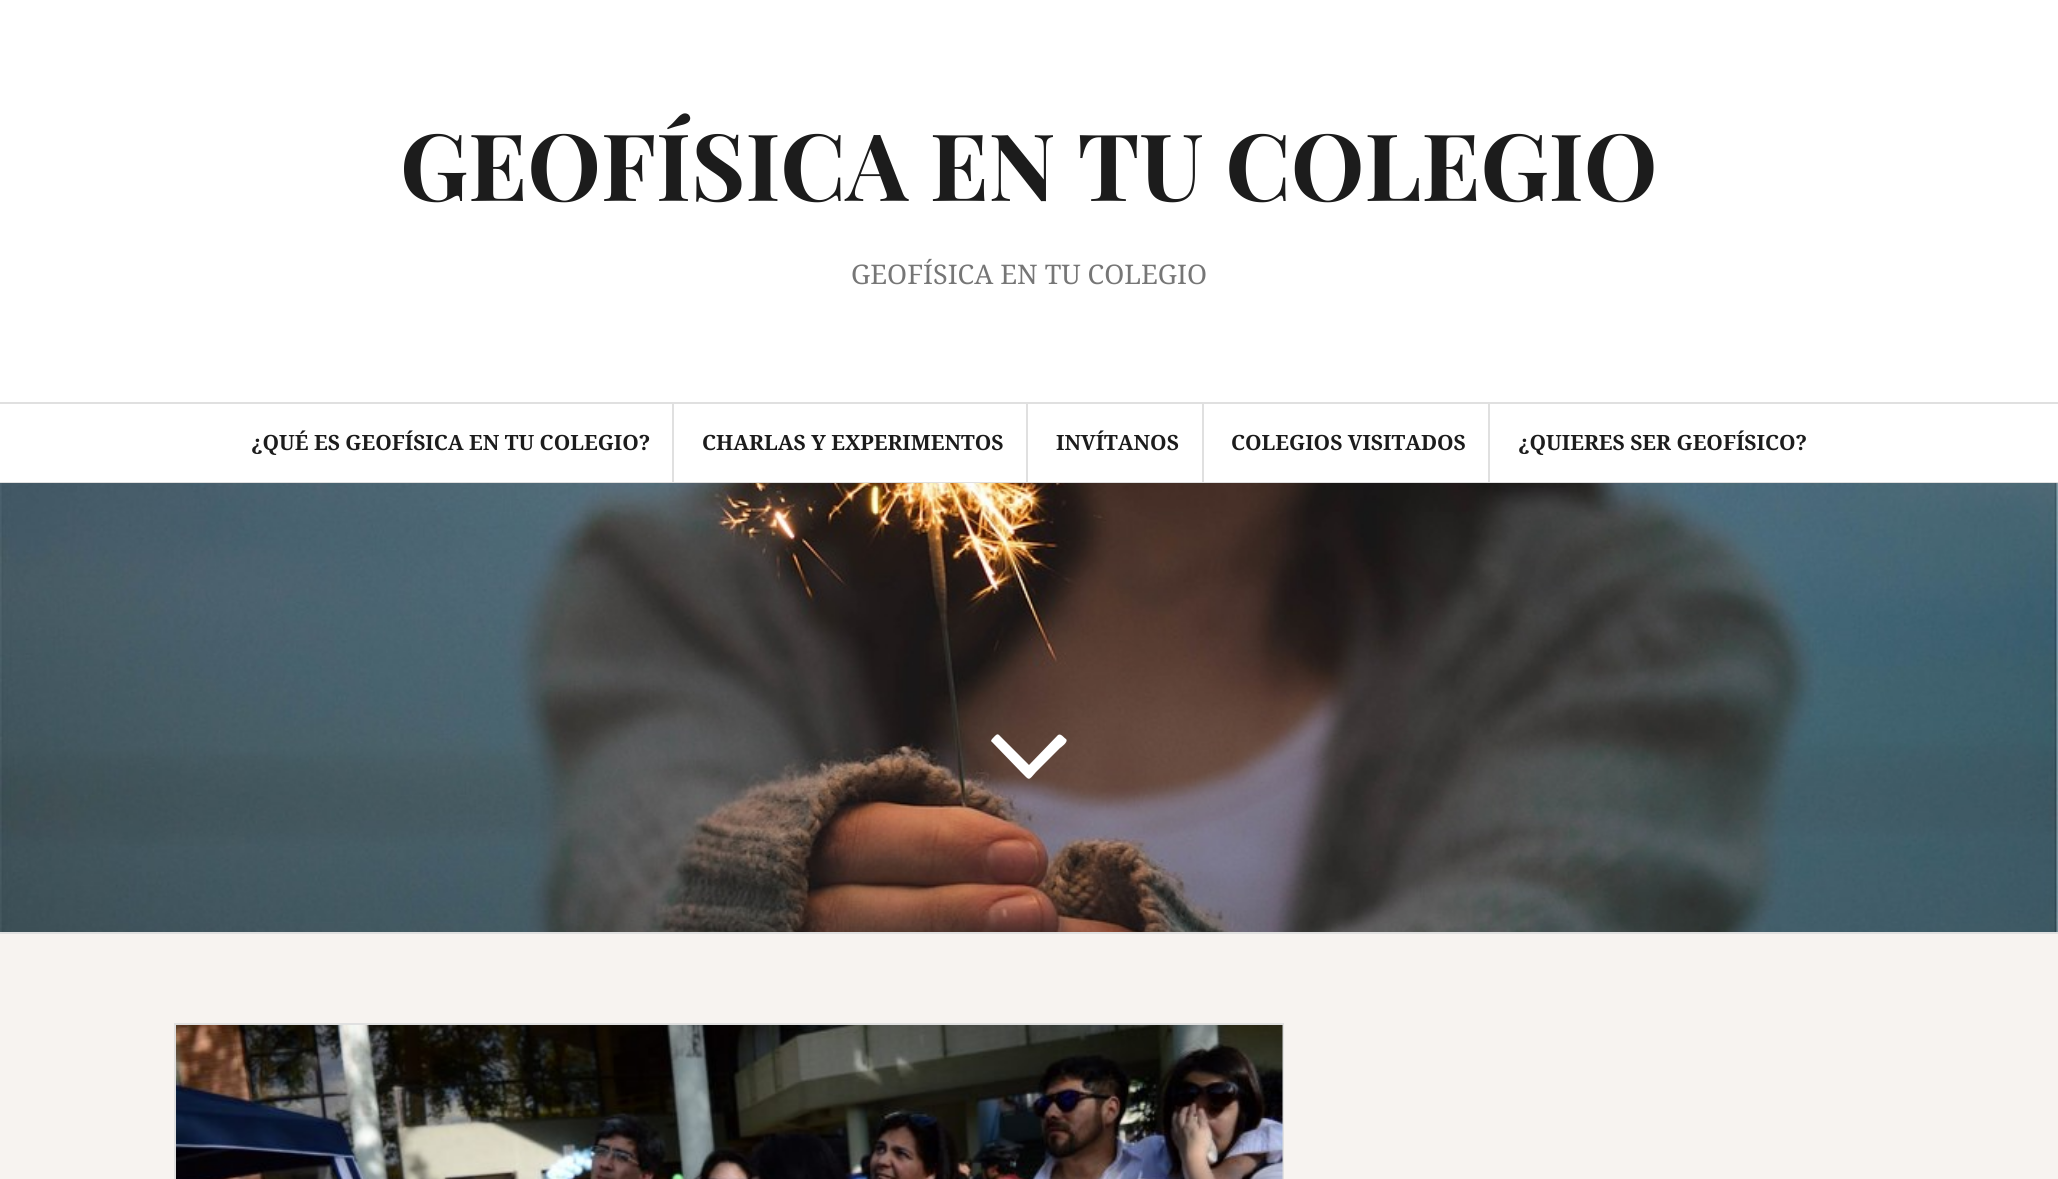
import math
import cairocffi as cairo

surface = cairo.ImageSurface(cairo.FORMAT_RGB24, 2058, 1179)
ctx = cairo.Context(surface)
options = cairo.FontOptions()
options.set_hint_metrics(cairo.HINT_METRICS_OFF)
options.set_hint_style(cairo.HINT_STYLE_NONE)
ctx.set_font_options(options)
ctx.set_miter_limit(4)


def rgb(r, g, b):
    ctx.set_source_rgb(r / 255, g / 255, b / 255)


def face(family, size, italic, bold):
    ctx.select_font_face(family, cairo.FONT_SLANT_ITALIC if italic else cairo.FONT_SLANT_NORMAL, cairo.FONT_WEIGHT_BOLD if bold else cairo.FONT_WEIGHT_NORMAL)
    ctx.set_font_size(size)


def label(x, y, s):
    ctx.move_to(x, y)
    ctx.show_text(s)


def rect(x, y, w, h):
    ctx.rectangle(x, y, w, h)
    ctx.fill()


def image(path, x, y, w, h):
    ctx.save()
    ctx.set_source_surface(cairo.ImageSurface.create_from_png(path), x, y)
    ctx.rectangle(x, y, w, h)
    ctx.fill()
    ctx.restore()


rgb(247, 243, 240)
ctx.paint()
rgb(255, 255, 255)
rect(0, 0, 2058, 482)
face('Playfair Display', 93, 0, 1)
rgb(28, 28, 28)
label(400, 201, 'GEOFÍSICA EN TU COLEGIO')
face('Noto Serif', 27, 0, 0)
rgb(118, 118, 118)
label(851, 284, 'GEOFÍSICA EN TU COLEGIO')
rgb(224, 224, 224)
rect(0, 402, 2058, 2)
rect(0, 482, 2058, 1)
rect(672, 404, 2, 78)
face('Noto Serif', 21, 0, 1)
rgb(28, 28, 28)
label(251, 450, '¿QUÉ ES GEOFÍSICA EN TU COLEGIO?')
rgb(224, 224, 224)
rect(1026, 404, 2, 78)
rgb(28, 28, 28)
label(702, 450, 'CHARLAS Y EXPERIMENTOS')
rgb(224, 224, 224)
rect(1202, 404, 2, 78)
rgb(28, 28, 28)
label(1056, 450, 'INVÍTANOS')
rgb(224, 224, 224)
rect(1488, 404, 2, 78)
rgb(28, 28, 28)
label(1231, 450, 'COLEGIOS VISITADOS')
label(1518, 450, '¿QUIERES SER GEOFÍSICO?')
image('image0.png', 0, 483, 2058, 449)
rgb(224, 224, 224)
rect(0, 932, 2058, 2)
rgb(255, 255, 255)
ctx.new_path()
ctx.move_to(1066, 739)
ctx.curve_to(1069, 742, 1060, 748, 1060, 748)
ctx.line_to(1036, 772)
ctx.curve_to(1028, 781, 1030, 781, 1021, 772)
ctx.line_to(992, 742)
ctx.curve_to(990, 741, 992, 739, 993, 738)
ctx.curve_to(995, 736, 997, 733, 999, 735)
ctx.line_to(1029, 765)
ctx.line_to(1058, 735)
ctx.curve_to(1061, 733, 1064, 738, 1066, 739)
ctx.close_path()
ctx.fill()
ctx.rectangle(175, 1024, 1108, 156)
rgb(224, 224, 224)
ctx.stroke()
image('image1.png', 176, 1025, 1107, 154)
surface.write_to_png('render.png')
